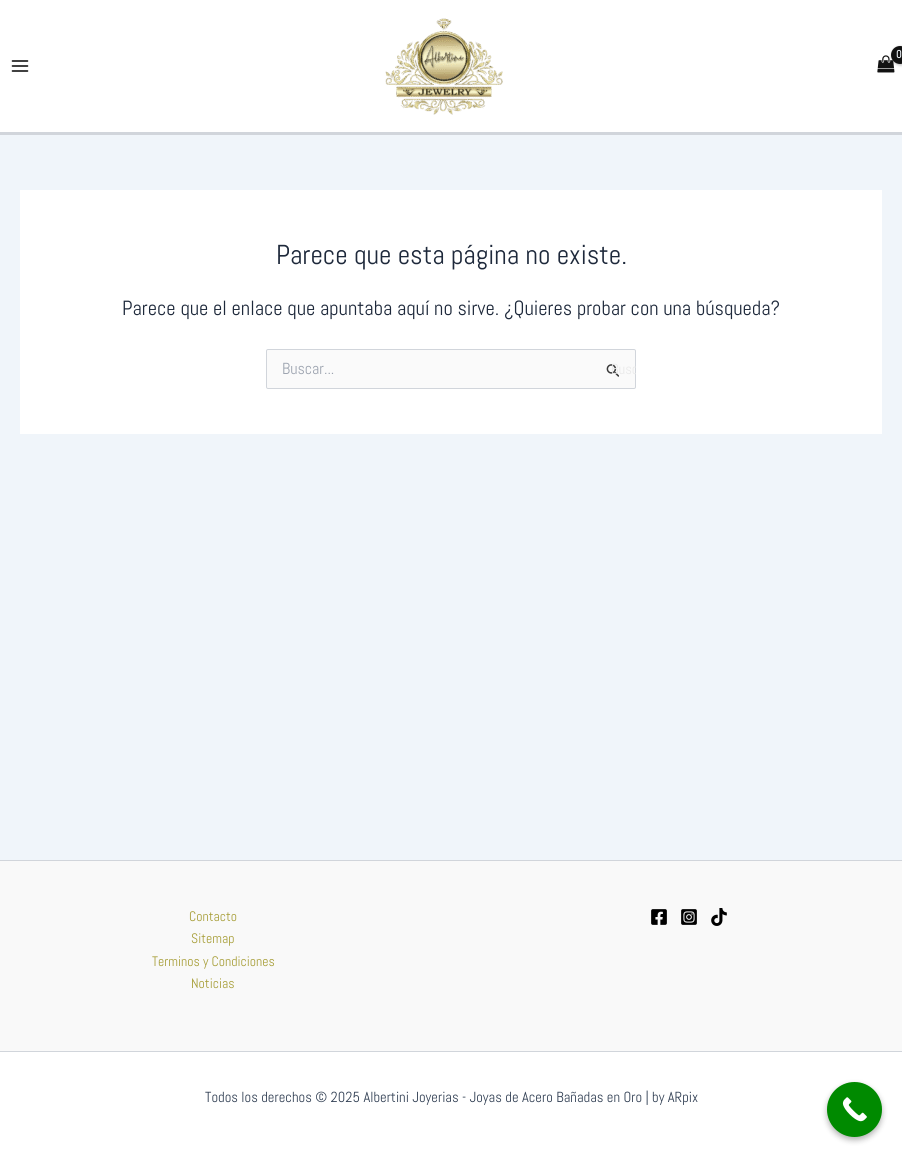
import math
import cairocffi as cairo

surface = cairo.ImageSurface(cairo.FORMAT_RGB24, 902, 1152)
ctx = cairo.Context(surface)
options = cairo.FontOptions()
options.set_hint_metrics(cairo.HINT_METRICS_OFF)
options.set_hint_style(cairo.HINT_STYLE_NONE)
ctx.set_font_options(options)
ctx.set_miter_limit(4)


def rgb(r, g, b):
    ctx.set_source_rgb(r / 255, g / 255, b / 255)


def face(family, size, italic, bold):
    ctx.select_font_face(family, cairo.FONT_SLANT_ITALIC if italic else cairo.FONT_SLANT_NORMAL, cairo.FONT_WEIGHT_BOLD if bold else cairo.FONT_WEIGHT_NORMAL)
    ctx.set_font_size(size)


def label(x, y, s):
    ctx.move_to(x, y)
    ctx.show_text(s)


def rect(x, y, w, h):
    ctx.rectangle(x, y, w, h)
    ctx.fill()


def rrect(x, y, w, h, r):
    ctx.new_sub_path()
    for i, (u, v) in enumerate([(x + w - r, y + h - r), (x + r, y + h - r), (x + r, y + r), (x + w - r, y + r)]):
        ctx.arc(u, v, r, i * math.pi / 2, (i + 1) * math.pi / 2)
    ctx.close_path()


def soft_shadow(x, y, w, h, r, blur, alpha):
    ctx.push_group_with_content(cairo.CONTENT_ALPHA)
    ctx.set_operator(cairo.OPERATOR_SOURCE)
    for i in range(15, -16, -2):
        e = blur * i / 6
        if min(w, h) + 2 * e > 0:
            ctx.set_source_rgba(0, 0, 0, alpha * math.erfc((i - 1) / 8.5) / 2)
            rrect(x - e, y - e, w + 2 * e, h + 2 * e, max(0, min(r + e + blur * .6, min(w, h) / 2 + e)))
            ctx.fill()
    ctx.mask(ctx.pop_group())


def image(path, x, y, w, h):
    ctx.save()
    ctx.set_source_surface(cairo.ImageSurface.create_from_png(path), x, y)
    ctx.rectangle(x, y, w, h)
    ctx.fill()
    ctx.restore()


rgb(240, 245, 250)
ctx.paint()
rgb(255, 255, 255)
rect(0, 0, 902, 132)
rgb(209, 213, 219)
rect(0, 132, 902, 3)
image('image0.png', 385, 18, 118, 97)
image('image1.png', 877, 55, 18, 18)
rgb(0, 0, 0)
soft_shadow(892, 47, 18, 18, 9, 1.5, 0.3)
rgb(17, 17, 17)
ctx.arc(900, 55, 9, 0, 2 * math.pi)
ctx.fill()
face('Abel', 11, 0, 1)
rgb(240, 245, 250)
label(896, 58, '0')
image('image2.png', 11, 60, 18, 12)
rgb(255, 255, 255)
rect(20, 190, 862, 244)
face('Abel', 27.4, 0, 0)
rgb(30, 41, 59)
label(276, 264, 'Parece que esta página no existe.')
face('Abel', 20.5, 0, 0)
label(122, 315, 'Parece que el enlace que apuntaba aquí no sirve. ¿Quieres probar con una búsqueda?')
rgb(250, 250, 250)
rrect(266.5, 349.5, 369, 39, 1.5)
ctx.fill_preserve()
rgb(209, 213, 219)
ctx.set_line_width(1)
ctx.stroke()
face('Abel', 16, 0, 0)
rgb(156, 163, 175)
label(282, 374, 'Buscar...')
image('image3.png', 606, 364, 13, 13)
ctx.save()
rrect(591, 349, 45, 40, 2)
ctx.clip()
face('Abel', 14.6, 0, 0)
rgb(233, 233, 233)
label(611, 374, 'Busc')
ctx.restore()
rgb(249, 249, 249)
rect(0, 861, 902, 190)
rgb(209, 213, 219)
rect(0, 860, 902, 1)
face('Abel', 13.75, 0, 0)
rgb(167, 158, 56)
label(189, 921, 'Contacto')
label(191, 943, 'Sitemap')
label(152, 966, 'Terminos y Condiciones')
label(191, 988, 'Noticias')
image('image4.png', 651, 909, 16, 16)
image('image5.png', 681, 909, 16, 16)
image('image6.png', 711, 908, 16, 18)
rgb(255, 255, 255)
rect(0, 1052, 902, 100)
rgb(209, 213, 219)
rect(0, 1051, 902, 1)
face('Abel', 14.6, 0, 0)
rgb(51, 65, 85)
label(205, 1102, 'Todos los derechos © 2025 Albertini Joyerias - Joyas de Acero Bañadas en Oro | by ARpix')
rgb(0, 0, 0)
soft_shadow(827, 1085, 55, 55, 27.5, 3, 0.3)
rgb(0, 138, 0)
ctx.arc(854.5, 1109.5, 27.5, 0, 2 * math.pi)
ctx.fill()
image('image7.png', 842, 1097, 25, 25)
surface.write_to_png('render.png')
